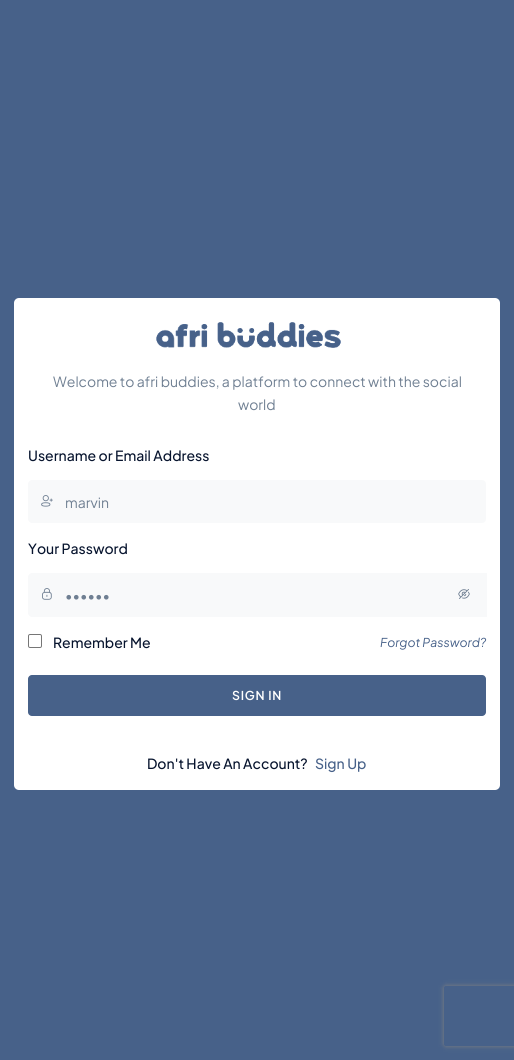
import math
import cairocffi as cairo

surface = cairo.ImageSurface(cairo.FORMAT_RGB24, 514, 1060)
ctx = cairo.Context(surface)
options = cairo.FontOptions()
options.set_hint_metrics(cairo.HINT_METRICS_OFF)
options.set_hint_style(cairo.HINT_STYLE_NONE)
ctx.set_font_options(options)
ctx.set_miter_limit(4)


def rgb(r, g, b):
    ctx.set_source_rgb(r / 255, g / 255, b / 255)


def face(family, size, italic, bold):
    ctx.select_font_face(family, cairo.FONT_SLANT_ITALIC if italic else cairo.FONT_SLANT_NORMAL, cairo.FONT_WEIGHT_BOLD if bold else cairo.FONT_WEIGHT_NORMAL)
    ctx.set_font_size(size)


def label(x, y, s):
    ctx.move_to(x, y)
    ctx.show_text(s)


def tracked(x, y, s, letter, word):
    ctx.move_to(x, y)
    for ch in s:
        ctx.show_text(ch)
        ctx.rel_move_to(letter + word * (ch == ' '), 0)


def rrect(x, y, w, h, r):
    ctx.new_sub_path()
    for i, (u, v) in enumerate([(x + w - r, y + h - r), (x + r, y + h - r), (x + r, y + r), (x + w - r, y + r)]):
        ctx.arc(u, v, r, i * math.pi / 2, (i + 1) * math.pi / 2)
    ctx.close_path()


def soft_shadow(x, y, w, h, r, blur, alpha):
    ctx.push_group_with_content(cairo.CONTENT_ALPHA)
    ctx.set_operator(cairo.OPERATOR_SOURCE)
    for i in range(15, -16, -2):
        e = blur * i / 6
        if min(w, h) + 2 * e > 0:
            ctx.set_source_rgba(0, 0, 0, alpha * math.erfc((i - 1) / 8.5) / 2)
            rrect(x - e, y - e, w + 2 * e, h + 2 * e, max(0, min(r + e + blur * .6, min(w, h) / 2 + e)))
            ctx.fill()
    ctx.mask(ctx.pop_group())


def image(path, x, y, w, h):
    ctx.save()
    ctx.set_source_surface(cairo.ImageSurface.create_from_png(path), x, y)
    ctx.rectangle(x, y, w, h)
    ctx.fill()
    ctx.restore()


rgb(71, 97, 137)
ctx.paint()
rgb(255, 255, 255)
rrect(14, 298, 486, 492, 5)
ctx.fill()
image('image0.png', 156, 322, 185, 26)
face('Plus Jakarta Sans', 14, 0, 0)
rgb(111, 127, 146)
label(53, 387, 'Welcome to afri buddies, a platform to connect with the social')
label(238, 410, 'world')
face('Plus Jakarta Sans Medium', 14, 0, 0)
rgb(7, 20, 46)
label(28, 461, 'Username or Email Address')
rgb(248, 249, 250)
ctx.new_path()
ctx.move_to(32, 480)
ctx.line_to(65, 480)
ctx.line_to(65, 523)
ctx.line_to(32, 523)
ctx.curve_to(30, 523, 28, 521, 28, 519)
ctx.line_to(28, 484)
ctx.curve_to(28, 482, 30, 480, 32, 480)
ctx.close_path()
ctx.fill()
image('image1.png', 41, 495, 12, 12)
ctx.new_path()
ctx.move_to(64.5, 480.5)
ctx.line_to(482, 480.5)
ctx.curve_to(484, 480.5, 485.5, 482, 485.5, 484)
ctx.line_to(485.5, 519)
ctx.curve_to(485.5, 521, 484, 522.5, 482, 522.5)
ctx.line_to(64.5, 522.5)
ctx.close_path()
ctx.fill_preserve()
ctx.set_line_width(1)
ctx.stroke()
face('Plus Jakarta Sans', 14, 0, 0)
rgb(111, 127, 146)
label(65, 508, 'marvin')
face('Plus Jakarta Sans Medium', 14, 0, 0)
rgb(7, 20, 46)
label(28, 554, 'Your Password')
rgb(248, 249, 250)
ctx.new_path()
ctx.move_to(32, 573)
ctx.line_to(65, 573)
ctx.line_to(65, 617)
ctx.line_to(32, 617)
ctx.curve_to(30, 617, 28, 615, 28, 613)
ctx.line_to(28, 577)
ctx.curve_to(28, 575, 30, 573, 32, 573)
ctx.close_path()
ctx.fill()
image('image2.png', 42, 588, 10, 12)
ctx.rectangle(64.5, 573.5, 422, 43)
ctx.fill_preserve()
ctx.stroke()
face('Plus Jakarta Sans', 14, 0, 0)
rgb(111, 127, 146)
label(65, 601, '••••••')
image('image3.png', 458, 589, 12, 10)
rrect(28.5, 634.5, 13, 13, 1.5)
rgb(118, 118, 118)
ctx.stroke()
face('Plus Jakarta Sans Medium', 14, 0, 0)
rgb(7, 20, 46)
label(53, 648, 'Remember Me')
face('Plus Jakarta Sans', 12.25, 1, 0)
rgb(71, 97, 137)
label(380, 647, 'Forgot Password?')
rrect(28, 675, 458, 41, 4)
ctx.fill()
face('Plus Jakarta Sans SemiBold', 12.25, 0, 0)
rgb(255, 255, 255)
tracked(232, 700, 'SIGN IN', 0.75, 0)
face('Plus Jakarta Sans Medium', 14, 0, 0)
rgb(7, 20, 46)
label(147, 769, 'Don\'t Have An Account?')
rgb(71, 97, 137)
label(315, 769, 'Sign Up')
ctx.save()
ctx.set_fill_rule(cairo.FILL_RULE_EVEN_ODD)
ctx.new_path()
ctx.move_to(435, 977)
ctx.line_to(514, 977)
ctx.line_to(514, 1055)
ctx.line_to(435, 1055)
ctx.close_path()
ctx.move_to(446, 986)
ctx.line_to(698, 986)
ctx.curve_to(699, 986, 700, 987, 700, 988)
ctx.line_to(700, 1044)
ctx.curve_to(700, 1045, 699, 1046, 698, 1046)
ctx.line_to(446, 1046)
ctx.curve_to(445, 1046, 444, 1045, 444, 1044)
ctx.line_to(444, 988)
ctx.curve_to(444, 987, 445, 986, 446, 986)
ctx.close_path()
ctx.clip()
rgb(128, 128, 128)
soft_shadow(444, 986, 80, 60, 2, 2.5, 1)
ctx.restore()
surface.write_to_png('render.png')
